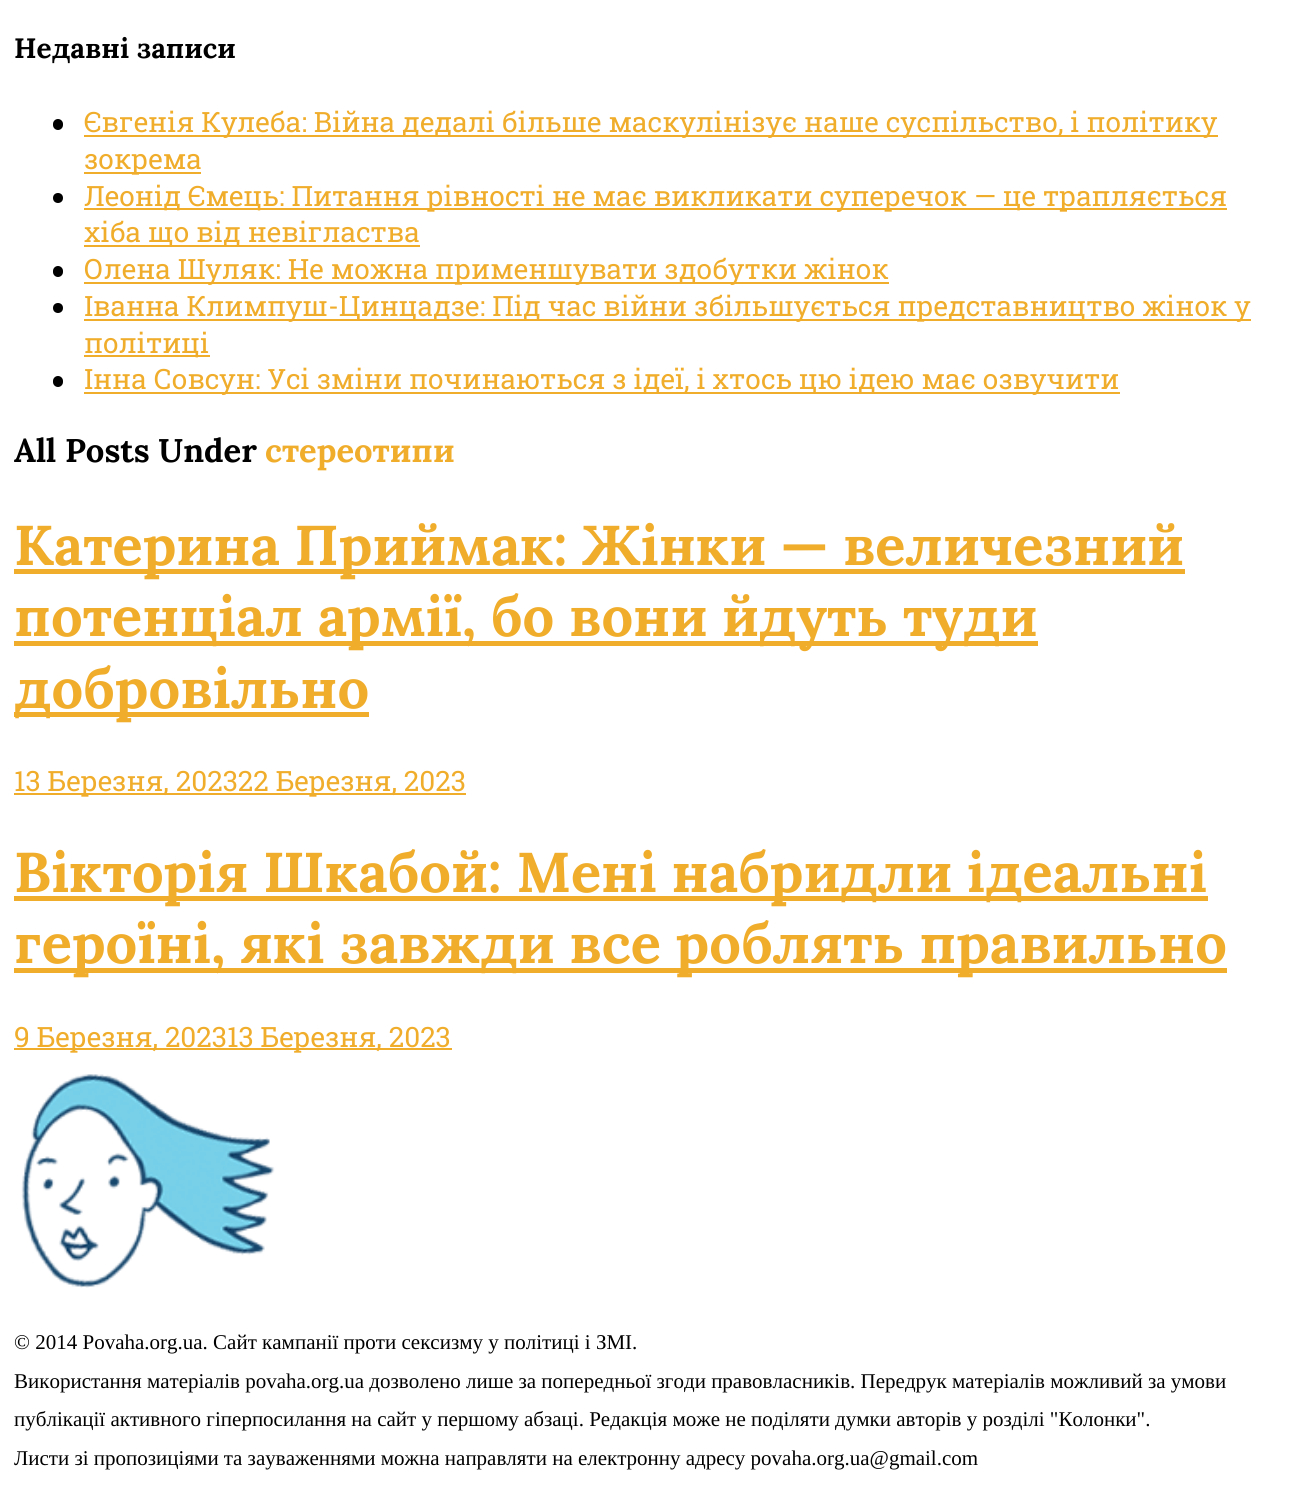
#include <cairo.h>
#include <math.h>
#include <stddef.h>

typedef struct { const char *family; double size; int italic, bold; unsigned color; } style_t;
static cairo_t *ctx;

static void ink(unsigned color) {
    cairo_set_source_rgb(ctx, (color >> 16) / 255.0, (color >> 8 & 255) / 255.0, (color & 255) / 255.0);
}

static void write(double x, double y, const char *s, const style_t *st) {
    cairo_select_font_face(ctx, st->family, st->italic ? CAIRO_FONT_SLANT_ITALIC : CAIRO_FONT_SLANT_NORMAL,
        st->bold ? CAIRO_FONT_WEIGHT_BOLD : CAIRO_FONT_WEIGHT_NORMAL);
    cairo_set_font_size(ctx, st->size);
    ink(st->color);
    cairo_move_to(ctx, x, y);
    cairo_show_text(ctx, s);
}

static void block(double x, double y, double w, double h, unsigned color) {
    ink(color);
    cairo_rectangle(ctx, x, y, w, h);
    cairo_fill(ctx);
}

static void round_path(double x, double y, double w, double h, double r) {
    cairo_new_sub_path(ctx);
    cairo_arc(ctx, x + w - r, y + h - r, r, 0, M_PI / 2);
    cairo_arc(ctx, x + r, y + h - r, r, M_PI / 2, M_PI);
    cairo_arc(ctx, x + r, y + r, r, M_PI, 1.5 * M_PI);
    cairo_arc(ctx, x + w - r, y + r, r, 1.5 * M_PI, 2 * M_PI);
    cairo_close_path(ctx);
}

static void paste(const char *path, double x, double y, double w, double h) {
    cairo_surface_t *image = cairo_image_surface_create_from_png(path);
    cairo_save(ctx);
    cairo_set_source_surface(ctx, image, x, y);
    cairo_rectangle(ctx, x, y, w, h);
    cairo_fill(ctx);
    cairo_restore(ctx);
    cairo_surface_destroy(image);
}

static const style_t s1 = {"Lora", 28, 0, 1, 0x000000};
static const style_t s2 = {"Roboto Slab", 28, 0, 0, 0xf0ad2c};
static const style_t s3 = {"Lora", 32.75, 0, 1, 0x000000};
static const style_t s4 = {"Lora", 32.75, 0, 1, 0xf0ad2c};
static const style_t s5 = {"Lora", 56, 0, 1, 0xf0ad2c};
static const style_t s6 = {"Liberation Serif", 21, 0, 0, 0x000000};

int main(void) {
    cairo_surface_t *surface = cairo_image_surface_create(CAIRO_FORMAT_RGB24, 1300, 1504);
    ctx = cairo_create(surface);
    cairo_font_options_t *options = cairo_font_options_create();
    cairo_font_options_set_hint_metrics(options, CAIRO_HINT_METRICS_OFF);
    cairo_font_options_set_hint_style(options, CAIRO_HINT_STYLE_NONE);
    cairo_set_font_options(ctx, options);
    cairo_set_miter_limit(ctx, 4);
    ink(0xffffff);
    cairo_paint(ctx);
    write(14, 58, "Недавні записи", &s1);
    round_path(53, 119, 10, 11, 5);
    cairo_fill(ctx);
    block(84, 135, 1134, 2, 0xf0ad2c);
    write(84, 132, "Євгенія Кулеба: Війна дедалі більше маскулінізує наше суспільство, і політику", &s2);
    block(84, 172, 117, 2, 0xf0ad2c);
    write(84, 169, "зокрема", &s2);
    ink(0x000000);
    cairo_new_path(ctx);
    cairo_arc(ctx, 58, 198, 5, 0, 2 * M_PI);
    cairo_fill(ctx);
    block(84, 208, 1143, 2, 0xf0ad2c);
    write(84, 206, "Леонід Ємець: Питання рівності не має викликати суперечок — це трапляється", &s2);
    block(84, 245, 336, 2, 0xf0ad2c);
    write(84, 242, "хіба що від невігластва", &s2);
    ink(0x000000);
    round_path(53, 266, 10, 11, 5);
    cairo_fill(ctx);
    block(84, 282, 805, 2, 0xf0ad2c);
    write(84, 279, "Олена Шуляк: Не можна применшувати здобутки жінок", &s2);
    ink(0x000000);
    cairo_new_path(ctx);
    cairo_arc(ctx, 58, 308, 5, 0, 2 * M_PI);
    cairo_fill(ctx);
    block(84, 319, 1167, 2, 0xf0ad2c);
    write(84, 316, "Іванна Климпуш-Цинцадзе: Під час війни збільшується представництво жінок у", &s2);
    block(84, 355, 126, 2, 0xf0ad2c);
    write(84, 353, "політиці", &s2);
    ink(0x000000);
    round_path(53, 376, 10, 11, 5);
    cairo_fill(ctx);
    block(84, 392, 1036, 2, 0xf0ad2c);
    write(84, 389, "Інна Совсун: Усі зміни починаються з ідеї, і хтось цю ідею має озвучити", &s2);
    write(14, 462, "All Posts Under", &s3);
    write(265, 462, "стереотипи", &s4);
    block(14, 569, 1171, 5, 0xf0ad2c);
    write(14, 565, "Катерина Приймак: Жінки — величезний", &s5);
    block(14, 641, 1024, 5, 0xf0ad2c);
    write(14, 636, "потенціал армії, бо вони йдуть туди", &s5);
    block(14, 712, 355, 5, 0xf0ad2c);
    write(14, 708, "добровільно", &s5);
    block(14, 793, 452, 2, 0xf0ad2c);
    write(14, 791, "13 Березня, 202322 Березня, 2023", &s2);
    block(14, 896, 1194, 5, 0xf0ad2c);
    write(14, 892, "Вікторія Шкабой: Мені набридли ідеальні", &s5);
    block(14, 968, 1213, 5, 0xf0ad2c);
    write(14, 963, "героїні, які завжди все роблять правильно", &s5);
    block(14, 1048, 438, 2, 0xf0ad2c);
    write(14, 1047, "9 Березня, 202313 Березня, 2023", &s2);
    paste("pic1.png", 21, 1074, 254, 214);
    write(14, 1349, "© 2014 Povaha.org.ua. Сайт кампанії проти сексизму у політиці і ЗМІ.", &s6);
    write(14, 1388, "Використання матеріалів povaha.org.ua дозволено лише за попередньої згоди правовласників. Передрук матеріалів можливий за умови", &s6);
    write(14, 1426, "публікації активного гіперпосилання на сайт у першому абзаці. Редакція може не поділяти думки авторів у розділі \"Колонки\".", &s6);
    write(14, 1465, "Листи зі пропозиціями та зауваженнями можна направляти на електронну адресу povaha.org.ua@gmail.com", &s6);
    cairo_surface_write_to_png(surface, "screenshot.png");
    cairo_font_options_destroy(options);
    cairo_destroy(ctx);
    cairo_surface_destroy(surface);
    return 0;
}
